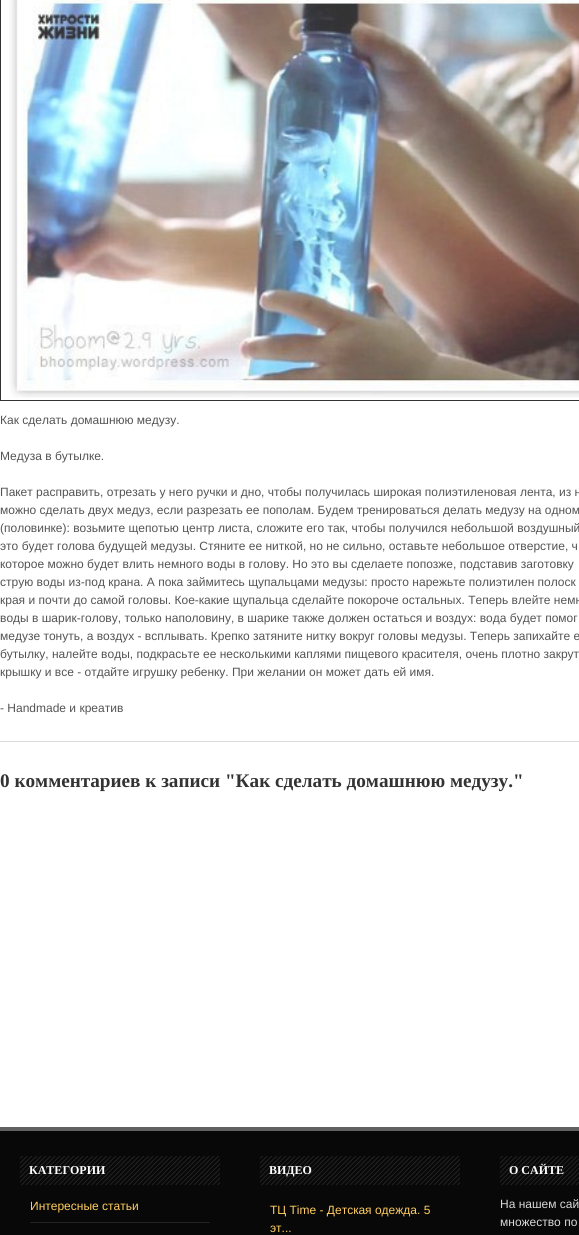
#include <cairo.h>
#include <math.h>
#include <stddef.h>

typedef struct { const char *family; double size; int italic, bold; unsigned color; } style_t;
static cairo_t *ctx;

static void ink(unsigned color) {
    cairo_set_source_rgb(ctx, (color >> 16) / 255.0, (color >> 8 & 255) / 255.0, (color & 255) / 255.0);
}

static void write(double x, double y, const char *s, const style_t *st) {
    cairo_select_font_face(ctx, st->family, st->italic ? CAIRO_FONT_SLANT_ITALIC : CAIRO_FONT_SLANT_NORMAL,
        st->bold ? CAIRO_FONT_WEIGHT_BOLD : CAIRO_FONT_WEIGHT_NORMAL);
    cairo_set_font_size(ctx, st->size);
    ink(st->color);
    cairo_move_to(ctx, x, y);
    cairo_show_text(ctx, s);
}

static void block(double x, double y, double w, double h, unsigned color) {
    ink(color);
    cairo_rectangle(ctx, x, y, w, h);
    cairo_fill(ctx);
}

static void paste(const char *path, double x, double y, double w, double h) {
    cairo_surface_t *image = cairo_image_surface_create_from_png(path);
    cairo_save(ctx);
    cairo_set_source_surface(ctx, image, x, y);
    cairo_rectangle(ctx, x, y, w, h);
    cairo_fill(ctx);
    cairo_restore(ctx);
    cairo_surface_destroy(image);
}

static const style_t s1 = {"Liberation Sans", 12, 0, 0, 0x545454};
static const style_t s2 = {"Liberation Serif", 19.2, 0, 1, 0x333333};
static const style_t s3 = {"Liberation Serif", 12, 0, 1, 0xffffff};
static const style_t s4 = {"Liberation Sans", 12, 0, 0, 0xffcd61};
static const style_t s5 = {"Liberation Sans", 12, 0, 0, 0xd8d8d8};

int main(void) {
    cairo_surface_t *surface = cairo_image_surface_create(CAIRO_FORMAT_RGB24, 579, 1235);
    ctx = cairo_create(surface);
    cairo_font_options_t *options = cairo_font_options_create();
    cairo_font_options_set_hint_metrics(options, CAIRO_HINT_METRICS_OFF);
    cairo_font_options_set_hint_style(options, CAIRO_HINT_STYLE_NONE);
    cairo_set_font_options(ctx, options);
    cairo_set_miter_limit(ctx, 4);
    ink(0xffffff);
    cairo_paint(ctx);
    block(0, 741, 579, 1, 0xd9d9d9);
    cairo_rectangle(ctx, 0.5, -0.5, 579, 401);
    ink(0x333333);
    cairo_set_line_width(ctx, 1);
    cairo_stroke(ctx);
    paste("pic1.png", 9, 0, 570, 398);
    write(0, 424, "Как сделать домашнюю медузу.", &s1);
    write(0, 460, "Медуза в бутылке.", &s1);
    write(0, 496, "Пакет расправить, отрезать у него ручки и дно, чтобы получилась широкая полиэтиленовая лента, из н", &s1);
    write(0, 514, "можно сделать двух медуз, если разрезать ее пополам. Будем тренироваться делать медузу на одном", &s1);
    write(0, 532, "(половинке): возьмите щепотью центр листа, сложите его так, чтобы получился небольшой воздушный", &s1);
    write(0, 550, "это будет голова будущей медузы. Стяните ее ниткой, но не сильно, оставьте небольшое отверстие, ч", &s1);
    write(0, 568, "которое можно будет влить немного воды в голову. Но это вы сделаете попозже, подставив заготовку", &s1);
    write(0, 586, "струю воды из-под крана. А пока займитесь щупальцами медузы: просто нарежьте полиэтилен полоск", &s1);
    write(0, 604, "края и почти до самой головы. Кое-какие щупальца сделайте покороче остальных. Теперь влейте немн", &s1);
    write(0, 622, "воды в шарик-голову, только наполовину, в шарике также должен остаться и воздух: вода будет помог", &s1);
    write(0, 640, "медузе тонуть, а воздух - всплывать. Крепко затяните нитку вокруг головы медузы. Теперь запихайте е", &s1);
    write(0, 658, "бутылку, налейте воды, подкрасьте ее несколькими каплями пищевого красителя, очень плотно закрут", &s1);
    write(0, 676, "крышку и все - отдайте игрушку ребенку. При желании он может дать ей имя.", &s1);
    write(0, 712, "- Handmade и креатив", &s1);
    write(0, 787, "0 комментариев к записи \"Как сделать домашнюю медузу.\"", &s2);
    block(0, 1131, 579, 104, 0x080808);
    block(0, 1127, 579, 4, 0x616161);
    paste("pic2.png", 20, 1156, 200, 29);
    write(29, 1174, "КАТЕГОРИИ", &s3);
    block(30, 1222, 180, 1, 0x232220);
    write(30, 1210, "Интересные статьи", &s4);
    paste("pic2.png", 260, 1156, 200, 29);
    write(269, 1174, "ВИДЕО", &s3);
    write(270, 1214, "ТЦ Time - Детская одежда. 5", &s4);
    write(270, 1232, "эт...", &s4);
    paste("pic3.png", 500, 1156, 79, 29);
    write(509, 1174, "О САЙТЕ", &s3);
    write(500, 1208, "На нашем сай", &s5);
    write(500, 1226, "множество по", &s5);
    cairo_surface_write_to_png(surface, "screenshot.png");
    cairo_font_options_destroy(options);
    cairo_destroy(ctx);
    cairo_surface_destroy(surface);
    return 0;
}
